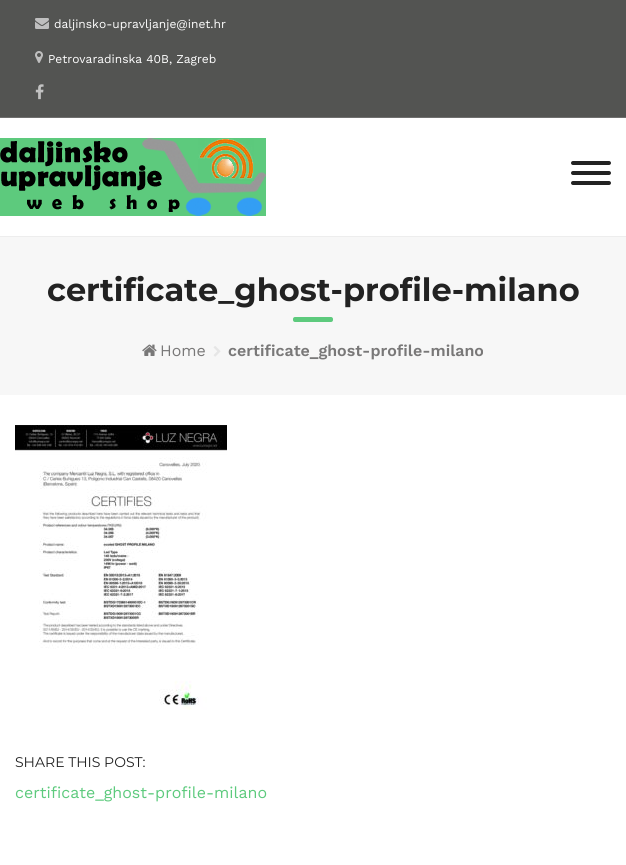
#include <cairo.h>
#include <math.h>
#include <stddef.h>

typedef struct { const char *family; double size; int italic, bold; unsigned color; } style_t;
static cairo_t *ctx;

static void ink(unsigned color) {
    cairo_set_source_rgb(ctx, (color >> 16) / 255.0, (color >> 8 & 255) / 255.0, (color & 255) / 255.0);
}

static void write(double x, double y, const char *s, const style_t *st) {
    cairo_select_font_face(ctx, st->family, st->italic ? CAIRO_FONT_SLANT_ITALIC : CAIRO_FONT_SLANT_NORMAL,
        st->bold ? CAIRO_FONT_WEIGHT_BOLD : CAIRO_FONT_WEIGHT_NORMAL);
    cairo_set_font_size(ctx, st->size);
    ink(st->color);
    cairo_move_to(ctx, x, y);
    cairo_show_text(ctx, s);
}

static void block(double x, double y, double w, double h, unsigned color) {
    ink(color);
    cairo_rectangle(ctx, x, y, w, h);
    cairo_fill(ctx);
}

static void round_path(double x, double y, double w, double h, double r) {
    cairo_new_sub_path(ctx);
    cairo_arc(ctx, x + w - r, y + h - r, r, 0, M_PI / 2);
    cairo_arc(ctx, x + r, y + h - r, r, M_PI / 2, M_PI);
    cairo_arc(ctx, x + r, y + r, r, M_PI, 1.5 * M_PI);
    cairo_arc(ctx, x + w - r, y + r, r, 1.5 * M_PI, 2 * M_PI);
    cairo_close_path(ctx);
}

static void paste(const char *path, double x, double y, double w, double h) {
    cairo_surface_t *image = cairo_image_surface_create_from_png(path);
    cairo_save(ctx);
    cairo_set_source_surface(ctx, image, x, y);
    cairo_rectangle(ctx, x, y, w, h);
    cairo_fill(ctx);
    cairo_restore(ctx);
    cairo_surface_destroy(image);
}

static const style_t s1 = {"Work Sans", 12, 0, 0, 0xffffff};
static const style_t s2 = {"Montserrat", 32, 0, 1, 0x222222};
static const style_t s3 = {"Work Sans", 16, 0, 0, 0x797878};
static const style_t s4 = {"Work Sans SemiBold", 16, 0, 0, 0x797878};
static const style_t s5 = {"Montserrat", 14, 0, 0, 0x222222};
static const style_t s6 = {"Work Sans", 16, 0, 0, 0x5dca7d};

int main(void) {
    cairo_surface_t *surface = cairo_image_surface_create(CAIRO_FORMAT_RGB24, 626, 865);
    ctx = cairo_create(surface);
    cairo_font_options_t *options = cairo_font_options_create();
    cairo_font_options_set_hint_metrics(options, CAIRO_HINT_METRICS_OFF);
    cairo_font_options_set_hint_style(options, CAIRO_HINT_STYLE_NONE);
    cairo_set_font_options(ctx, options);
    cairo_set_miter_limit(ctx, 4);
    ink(0xffffff);
    cairo_paint(ctx);
    block(0, 0, 626, 117, 0x535452);
    block(0, 117, 626, 1, 0x6f6f6e);
    paste("pic1.png", 35, 18, 14, 11);
    write(54, 28, "daljinsko-upravljanje@inet.hr", &s1);
    paste("pic2.png", 35, 51, 8, 12);
    write(48, 63, "Petrovaradinska 40B, Zagreb", &s1);
    paste("pic3.png", 35, 84, 9, 16);
    block(0, 236, 626, 1, 0xededed);
    paste("pic4.png", 0, 138, 266, 78);
    ink(0x222222);
    round_path(571, 181, 40, 4, 2);
    cairo_fill(ctx);
    round_path(571, 161, 40, 4, 2);
    cairo_fill(ctx);
    round_path(571, 171, 40, 4, 2);
    cairo_fill(ctx);
    block(0, 237, 626, 158, 0xf7f7f7);
    write(47, 301, "certificate_ghost-profile-milano", &s2);
    ink(0x5dca7d);
    round_path(293, 317, 40, 5, 2);
    cairo_fill(ctx);
    paste("pic5.png", 142, 344, 15, 12);
    write(160, 356, "Home", &s3);
    paste("pic6.png", 213, 346, 8, 11);
    write(228, 356, "certificate_ghost-profile-milano", &s4);
    paste("pic7.png", 15, 425, 212, 285);
    write(15, 767, "SHARE THIS POST:", &s5);
    write(15, 798, "certificate_ghost-profile-milano", &s6);
    cairo_surface_write_to_png(surface, "screenshot.png");
    cairo_font_options_destroy(options);
    cairo_destroy(ctx);
    cairo_surface_destroy(surface);
    return 0;
}
